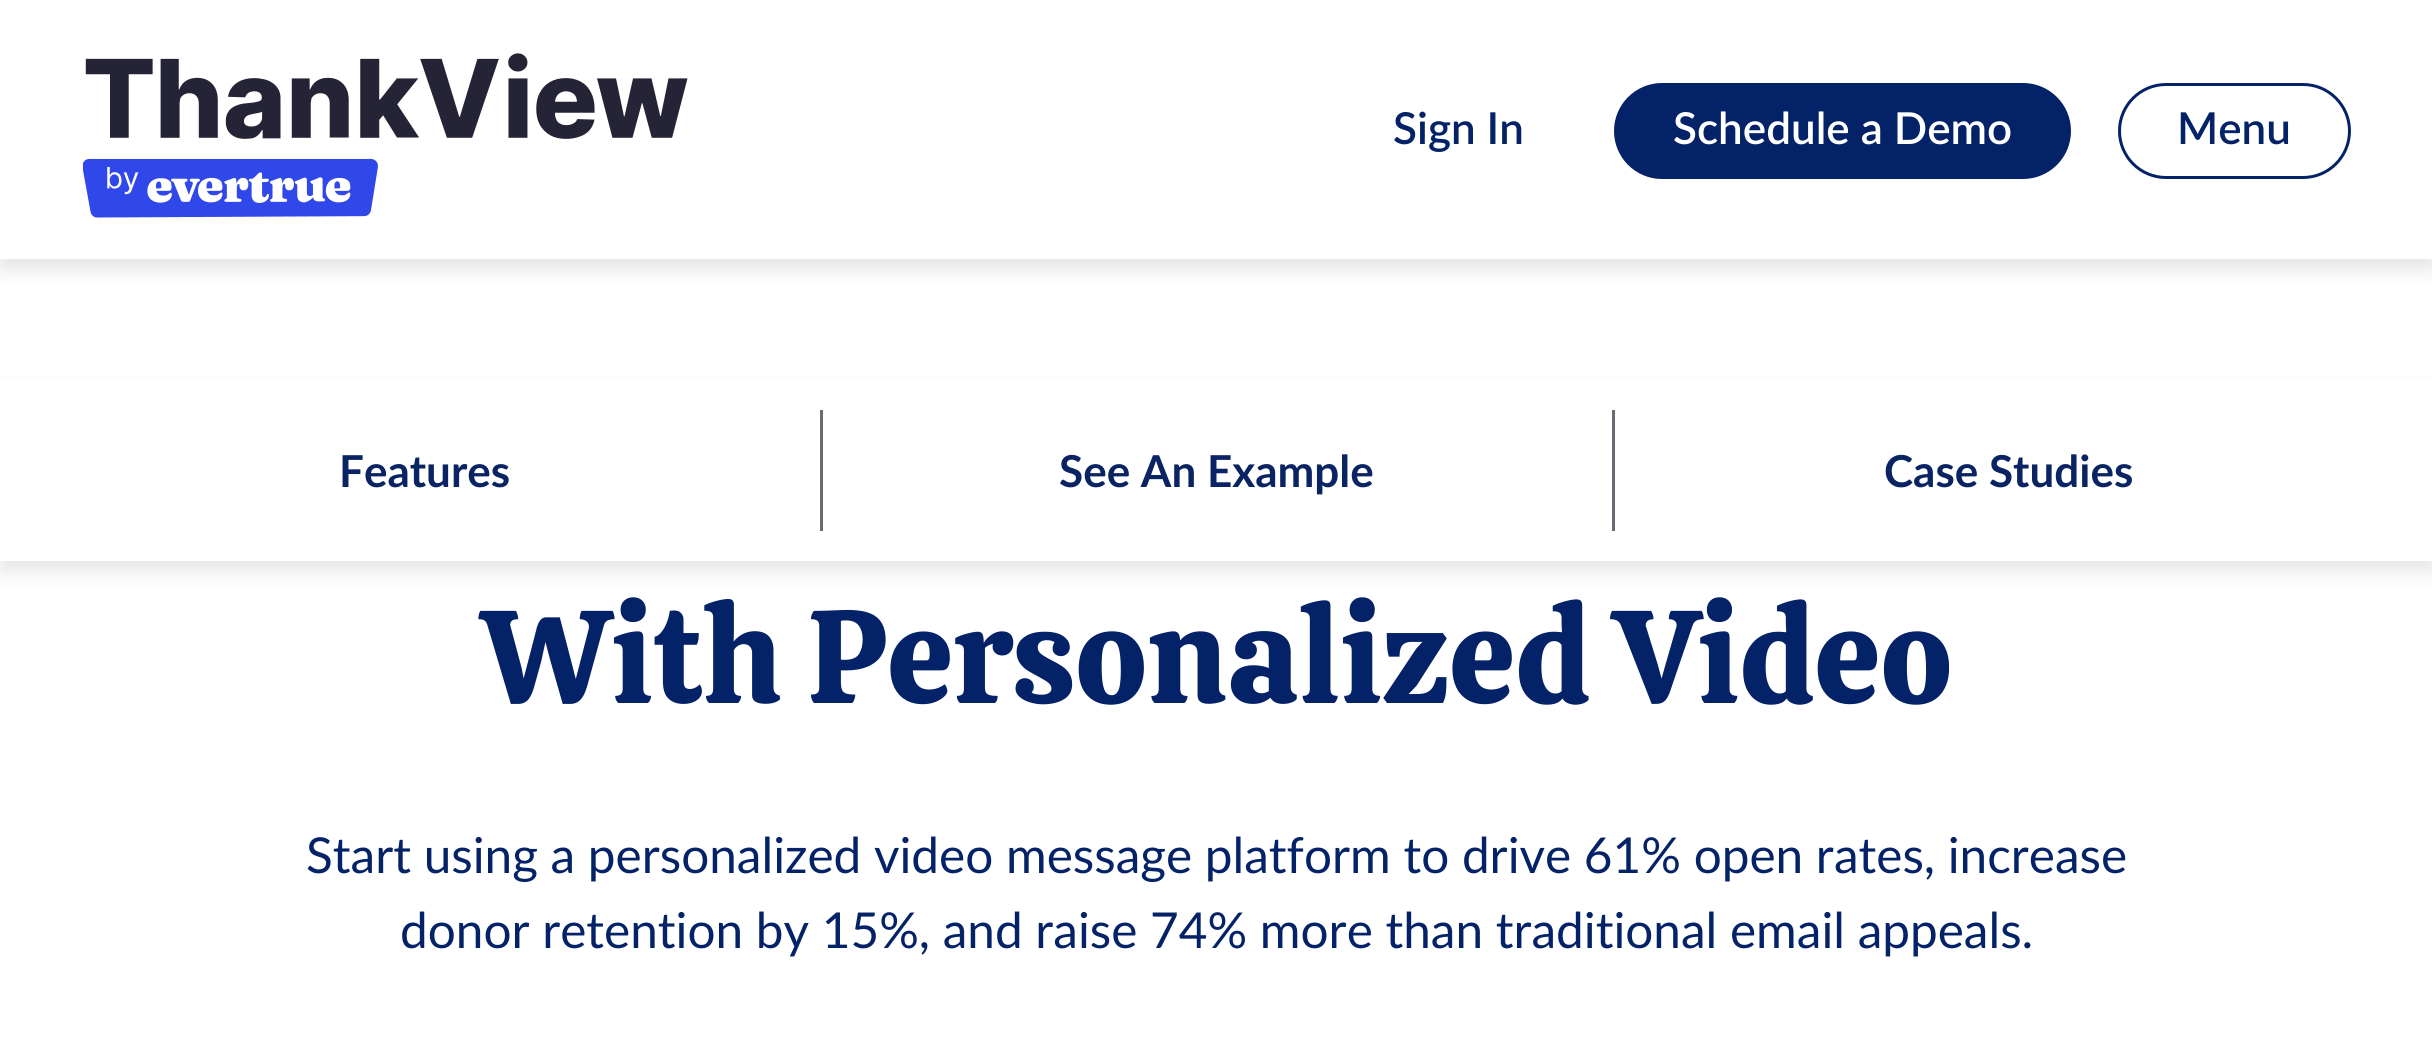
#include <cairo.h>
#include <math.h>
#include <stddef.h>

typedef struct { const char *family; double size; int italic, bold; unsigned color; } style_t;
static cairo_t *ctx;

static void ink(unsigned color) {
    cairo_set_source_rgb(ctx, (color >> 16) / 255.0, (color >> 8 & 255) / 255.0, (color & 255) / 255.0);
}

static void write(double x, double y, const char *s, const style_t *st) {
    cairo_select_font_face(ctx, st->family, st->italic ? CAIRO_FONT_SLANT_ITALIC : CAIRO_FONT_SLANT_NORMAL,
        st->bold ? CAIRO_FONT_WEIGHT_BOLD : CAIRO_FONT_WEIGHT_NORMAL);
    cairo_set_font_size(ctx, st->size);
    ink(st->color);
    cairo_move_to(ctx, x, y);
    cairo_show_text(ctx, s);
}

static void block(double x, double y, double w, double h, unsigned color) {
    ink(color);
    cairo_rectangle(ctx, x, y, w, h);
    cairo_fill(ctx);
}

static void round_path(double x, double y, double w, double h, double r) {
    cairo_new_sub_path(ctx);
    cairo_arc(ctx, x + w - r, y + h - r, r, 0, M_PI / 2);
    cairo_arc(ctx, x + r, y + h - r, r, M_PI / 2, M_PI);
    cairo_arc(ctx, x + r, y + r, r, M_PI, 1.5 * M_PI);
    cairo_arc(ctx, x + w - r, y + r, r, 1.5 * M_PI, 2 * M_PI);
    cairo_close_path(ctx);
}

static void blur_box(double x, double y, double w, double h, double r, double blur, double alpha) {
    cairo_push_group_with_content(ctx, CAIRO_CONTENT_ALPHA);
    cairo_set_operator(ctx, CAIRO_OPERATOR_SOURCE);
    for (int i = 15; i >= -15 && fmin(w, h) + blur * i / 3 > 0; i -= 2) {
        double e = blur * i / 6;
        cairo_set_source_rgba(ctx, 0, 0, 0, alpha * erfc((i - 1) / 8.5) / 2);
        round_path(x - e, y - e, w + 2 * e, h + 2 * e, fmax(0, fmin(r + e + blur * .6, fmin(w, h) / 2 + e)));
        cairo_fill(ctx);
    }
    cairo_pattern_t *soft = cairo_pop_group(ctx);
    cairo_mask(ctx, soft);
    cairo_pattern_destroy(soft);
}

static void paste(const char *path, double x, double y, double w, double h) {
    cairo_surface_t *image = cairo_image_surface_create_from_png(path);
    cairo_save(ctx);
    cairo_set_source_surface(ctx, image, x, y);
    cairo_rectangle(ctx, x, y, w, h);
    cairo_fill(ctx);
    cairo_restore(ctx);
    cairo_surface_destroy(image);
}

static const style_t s1 = {"Lato SemiBold", 44, 0, 0, 0x042267};
static const style_t s2 = {"Lato SemiBold", 44, 0, 0, 0xffffff};
static const style_t s3 = {"Lato", 44, 0, 1, 0x0a2463};
static const style_t s4 = {"Calistoga", 132, 0, 0, 0x042267};
static const style_t s5 = {"Lato", 49.5, 0, 0, 0x042267};

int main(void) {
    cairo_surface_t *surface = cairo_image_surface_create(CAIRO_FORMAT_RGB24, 2432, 1038);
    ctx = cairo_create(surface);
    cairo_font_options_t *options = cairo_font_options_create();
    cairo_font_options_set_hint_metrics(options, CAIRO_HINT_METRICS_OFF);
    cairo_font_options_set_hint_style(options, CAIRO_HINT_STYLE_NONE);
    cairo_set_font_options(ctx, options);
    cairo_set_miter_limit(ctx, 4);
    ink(0xffffff);
    cairo_paint(ctx);
    ink(0x000000);
    blur_box(0, 11, 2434, 259, 0, 9.5, 0.1);
    block(0, 0, 2432, 259, 0xffffff);
    paste("pic1.png", 83, 53, 605, 165);
    write(1393, 144, "Sign In", &s1);
    round_path(1614, 83, 457, 96, 48);
    cairo_fill(ctx);
    write(1673, 144, "Schedule a Demo", &s2);
    round_path(2119.5, 84.5, 230, 93, 46.5);
    ink(0x042267);
    cairo_set_line_width(ctx, 3);
    cairo_stroke(ctx);
    write(2177, 144, "Menu", &s1);
    ink(0x000000);
    blur_box(0, 391, 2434, 181, 0, 9.5, 0.1);
    block(0, 380, 2432, 181, 0xffffff);
    write(339, 487, "Features", &s3);
    block(1612, 410, 3, 121, 0x696a72);
    block(820, 410, 3, 121, 0x696a72);
    write(1059, 487, "See An Example", &s3);
    write(1884, 487, "Case Studies", &s3);
    write(481, 703, "With Personalized Video", &s4);
    write(306, 873, "Start using a personalized video message platform to drive 61% open rates, increase", &s5);
    write(400, 948, "donor retention by 15%, and raise 74% more than traditional email appeals.", &s5);
    cairo_surface_write_to_png(surface, "screenshot.png");
    cairo_font_options_destroy(options);
    cairo_destroy(ctx);
    cairo_surface_destroy(surface);
    return 0;
}
